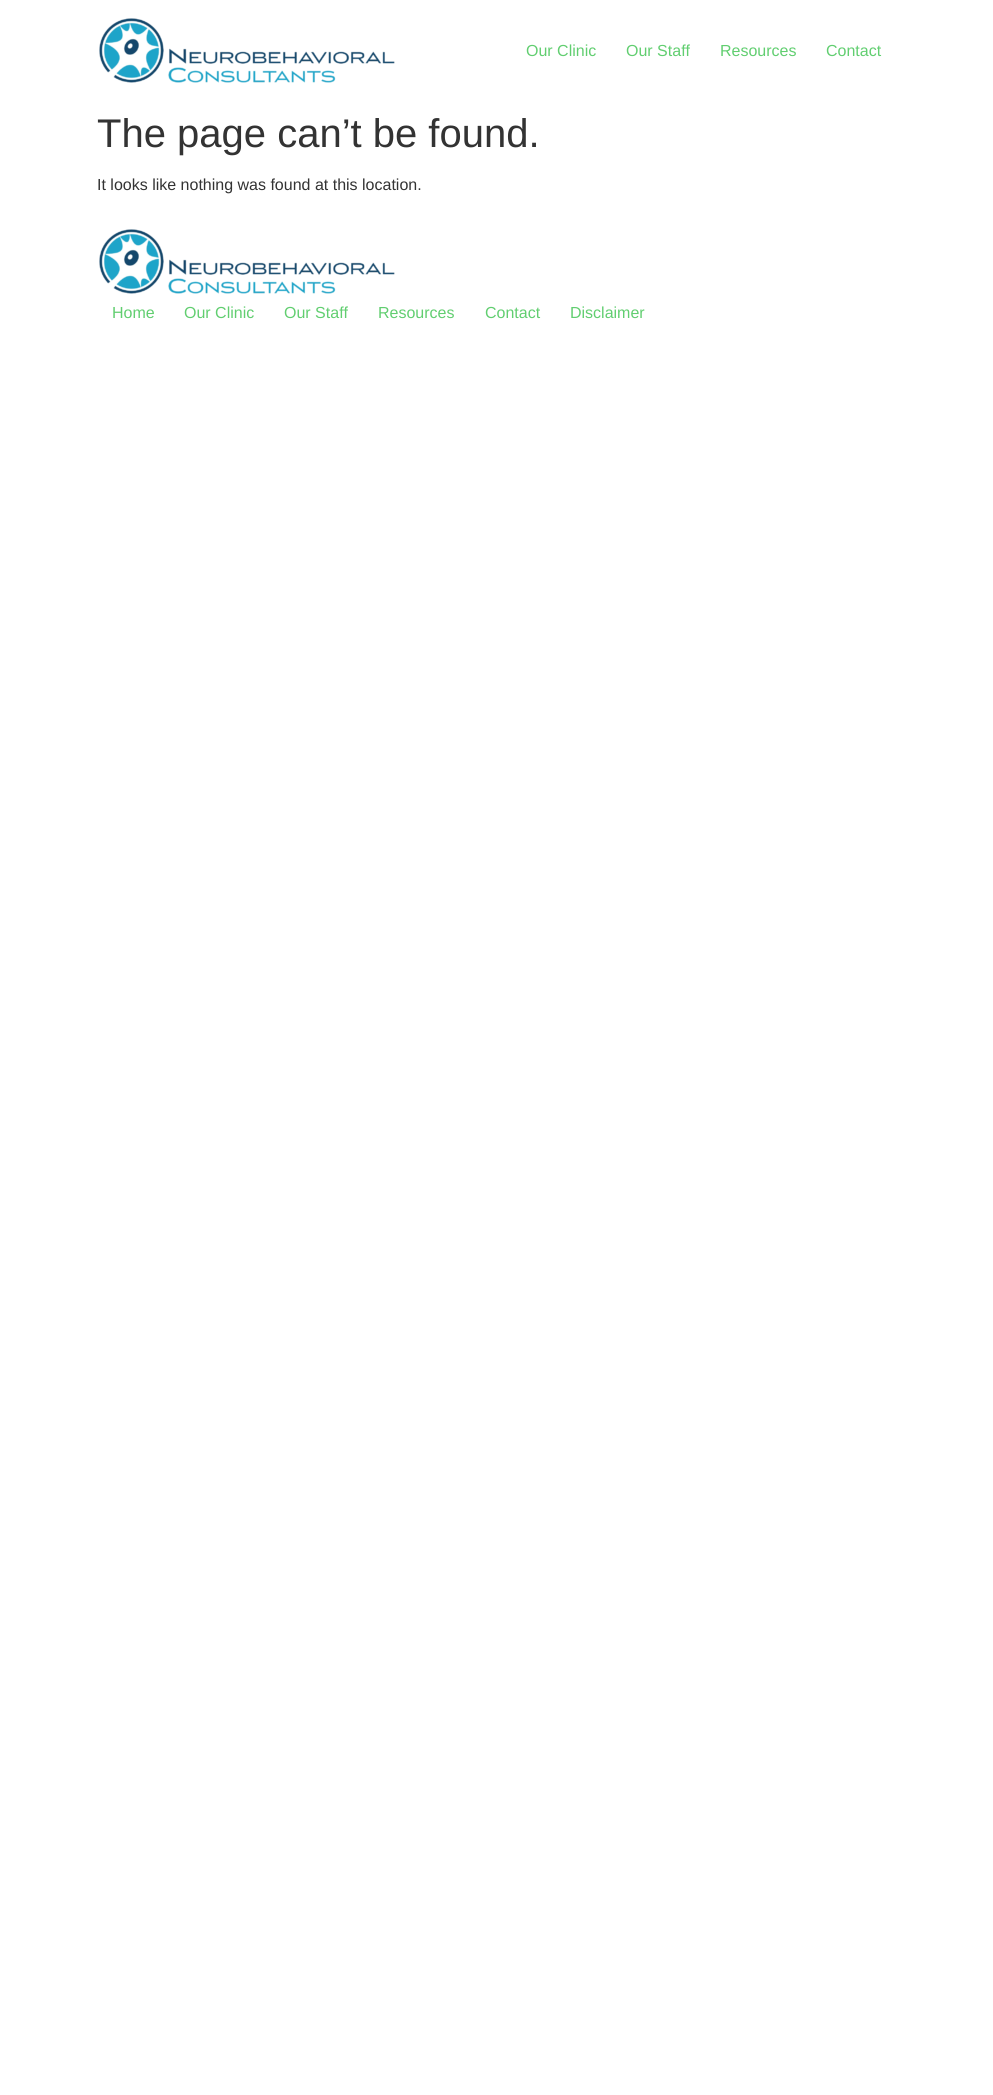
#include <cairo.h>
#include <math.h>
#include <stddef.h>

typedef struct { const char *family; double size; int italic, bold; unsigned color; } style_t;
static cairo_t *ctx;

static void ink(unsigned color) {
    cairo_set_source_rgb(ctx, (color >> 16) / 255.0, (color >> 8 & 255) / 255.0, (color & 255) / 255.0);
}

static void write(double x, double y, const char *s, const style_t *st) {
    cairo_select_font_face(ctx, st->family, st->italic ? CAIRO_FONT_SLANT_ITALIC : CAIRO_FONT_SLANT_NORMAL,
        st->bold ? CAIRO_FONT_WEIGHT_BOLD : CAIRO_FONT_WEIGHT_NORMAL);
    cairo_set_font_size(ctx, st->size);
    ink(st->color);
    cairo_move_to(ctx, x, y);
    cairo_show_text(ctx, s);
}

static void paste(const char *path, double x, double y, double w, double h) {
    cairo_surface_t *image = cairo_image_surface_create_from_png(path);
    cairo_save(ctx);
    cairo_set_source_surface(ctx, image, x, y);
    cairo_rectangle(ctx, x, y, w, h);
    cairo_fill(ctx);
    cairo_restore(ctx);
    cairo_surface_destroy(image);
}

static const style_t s1 = {"Liberation Sans", 16, 0, 0, 0x61ce70};
static const style_t s2 = {"Liberation Sans", 40, 0, 0, 0x333333};
static const style_t s3 = {"Liberation Sans", 16, 0, 0, 0x333333};

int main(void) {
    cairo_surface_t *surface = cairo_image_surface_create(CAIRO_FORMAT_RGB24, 993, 2095);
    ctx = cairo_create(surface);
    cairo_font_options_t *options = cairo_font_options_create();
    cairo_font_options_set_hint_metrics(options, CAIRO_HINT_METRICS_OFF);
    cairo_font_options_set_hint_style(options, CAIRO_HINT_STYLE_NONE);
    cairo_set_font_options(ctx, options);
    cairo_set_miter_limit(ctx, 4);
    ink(0xffffff);
    cairo_paint(ctx);
    paste("pic1.png", 99, 18, 296, 65);
    write(526, 56, "Our Clinic", &s1);
    write(626, 56, "Our Staff", &s1);
    write(720, 56, "Resources", &s1);
    write(826, 56, "Contact", &s1);
    write(97, 147, "The page can’t be found.", &s2);
    write(97, 190, "It looks like nothing was found at this location.", &s3);
    paste("pic1.png", 99, 229, 296, 65);
    write(112, 318, "Home", &s1);
    write(184, 318, "Our Clinic", &s1);
    write(284, 318, "Our Staff", &s1);
    write(378, 318, "Resources", &s1);
    write(485, 318, "Contact", &s1);
    write(570, 318, "Disclaimer", &s1);
    cairo_surface_write_to_png(surface, "screenshot.png");
    cairo_font_options_destroy(options);
    cairo_destroy(ctx);
    cairo_surface_destroy(surface);
    return 0;
}
